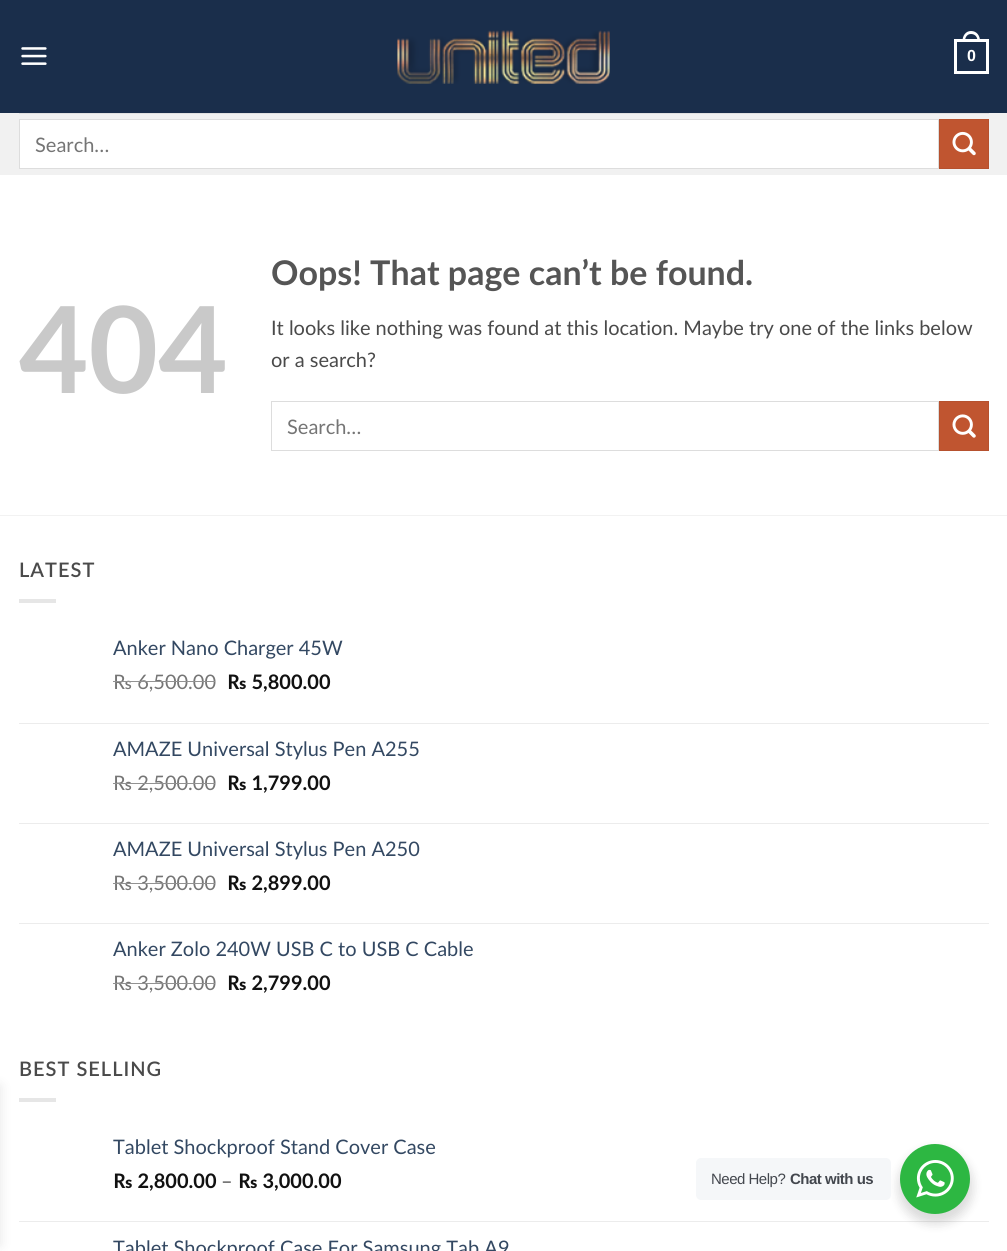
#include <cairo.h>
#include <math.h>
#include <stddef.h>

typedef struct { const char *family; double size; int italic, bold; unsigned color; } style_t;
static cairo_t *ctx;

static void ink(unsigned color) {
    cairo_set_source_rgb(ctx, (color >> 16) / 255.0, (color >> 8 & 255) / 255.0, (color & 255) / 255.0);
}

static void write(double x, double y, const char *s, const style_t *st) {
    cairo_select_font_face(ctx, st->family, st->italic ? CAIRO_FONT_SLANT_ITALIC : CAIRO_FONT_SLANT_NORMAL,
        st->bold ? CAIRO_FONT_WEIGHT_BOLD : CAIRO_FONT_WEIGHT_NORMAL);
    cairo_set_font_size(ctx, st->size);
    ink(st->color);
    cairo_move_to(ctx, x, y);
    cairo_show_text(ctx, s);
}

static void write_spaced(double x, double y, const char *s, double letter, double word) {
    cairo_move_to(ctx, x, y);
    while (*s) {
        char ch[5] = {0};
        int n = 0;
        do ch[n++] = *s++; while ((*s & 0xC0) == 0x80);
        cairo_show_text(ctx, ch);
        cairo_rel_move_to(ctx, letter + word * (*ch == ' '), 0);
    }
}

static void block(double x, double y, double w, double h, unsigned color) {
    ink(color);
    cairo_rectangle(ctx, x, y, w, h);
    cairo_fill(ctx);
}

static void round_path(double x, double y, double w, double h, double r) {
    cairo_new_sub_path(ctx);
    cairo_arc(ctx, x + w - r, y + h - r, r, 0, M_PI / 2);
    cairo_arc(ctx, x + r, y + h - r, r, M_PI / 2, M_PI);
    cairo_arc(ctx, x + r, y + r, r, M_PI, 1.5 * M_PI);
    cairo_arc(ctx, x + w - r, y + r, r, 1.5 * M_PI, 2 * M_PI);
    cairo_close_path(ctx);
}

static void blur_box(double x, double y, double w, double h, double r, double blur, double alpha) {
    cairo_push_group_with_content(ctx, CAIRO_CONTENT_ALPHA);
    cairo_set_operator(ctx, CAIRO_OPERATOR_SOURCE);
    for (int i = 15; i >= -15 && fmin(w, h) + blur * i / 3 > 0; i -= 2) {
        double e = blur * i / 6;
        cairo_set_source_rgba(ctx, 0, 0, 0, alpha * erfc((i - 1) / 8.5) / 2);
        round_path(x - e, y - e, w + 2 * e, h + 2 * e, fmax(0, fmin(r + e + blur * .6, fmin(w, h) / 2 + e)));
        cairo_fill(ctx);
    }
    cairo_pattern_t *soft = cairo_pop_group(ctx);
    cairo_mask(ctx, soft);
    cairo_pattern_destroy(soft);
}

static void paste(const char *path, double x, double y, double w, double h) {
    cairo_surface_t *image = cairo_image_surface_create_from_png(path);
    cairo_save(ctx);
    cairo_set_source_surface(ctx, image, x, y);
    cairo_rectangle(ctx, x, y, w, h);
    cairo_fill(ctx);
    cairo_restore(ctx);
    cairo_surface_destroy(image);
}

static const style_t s1 = {"Liberation Sans", 16, 0, 1, 0xffffff};
static const style_t s2 = {"Lato", 20, 0, 0, 0x757575};
static const style_t s3 = {"Lato", 120, 0, 1, 0xc9c9c9};
static const style_t s4 = {"Lato", 34, 0, 1, 0x555555};
static const style_t s5 = {"Lato", 20, 0, 0, 0x4a4a4a};
static const style_t s6 = {"Lato", 20, 0, 0, 0x334862};
static const style_t s7 = {"Lato", 20, 0, 1, 0x111111};

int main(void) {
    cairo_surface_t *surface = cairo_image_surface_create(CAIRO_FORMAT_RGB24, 1007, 1251);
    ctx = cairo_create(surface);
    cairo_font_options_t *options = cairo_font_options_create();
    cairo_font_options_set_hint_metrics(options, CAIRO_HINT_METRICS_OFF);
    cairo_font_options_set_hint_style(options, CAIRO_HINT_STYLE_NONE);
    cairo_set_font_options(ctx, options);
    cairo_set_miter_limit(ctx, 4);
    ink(0xffffff);
    cairo_paint(ctx);
    ink(0x000000);
    blur_box(-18, 1086, 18, 159, 0, 6, 0.1);
    block(0, 0, 1007, 113, 0x1a2e4b);
    paste("pic1.png", 21, 47, 26, 18);
    paste("pic2.png", 397, 30, 213, 54);
    cairo_rectangle(ctx, 955.5, 40.5, 32, 32);
    ink(0xffffff);
    cairo_set_line_width(ctx, 3);
    cairo_stroke(ctx);
    cairo_set_fill_rule(ctx, CAIRO_FILL_RULE_EVEN_ODD);
    cairo_new_path(ctx);
    cairo_move_to(ctx, 971, 31);
    cairo_curve_to(ctx, 977, 31, 980, 36, 980, 41);
    cairo_line_to(ctx, 962.5, 41);
    cairo_curve_to(ctx, 962.5, 36, 965.5, 31, 971, 31);
    cairo_close_path(ctx);
    cairo_move_to(ctx, 971, 34);
    cairo_curve_to(ctx, 975.5, 34, 977.5, 37.5, 977.5, 41);
    cairo_line_to(ctx, 965, 41);
    cairo_curve_to(ctx, 965, 37.5, 967, 34, 971, 34);
    cairo_close_path(ctx);
    cairo_fill(ctx);
    write(967, 61, "0", &s1);
    block(0, 113, 1007, 62, 0xf1f1f1);
    block(19, 113, 970, 1, 0xe0e0e0);
    ink(0xffffff);
    cairo_rectangle(ctx, 19.5, 119.5, 919, 49);
    cairo_fill_preserve(ctx);
    ink(0xdddddd);
    cairo_set_line_width(ctx, 1);
    cairo_stroke(ctx);
    write(35, 152, "Search…", &s2);
    ink(0xc05530);
    cairo_rectangle(ctx, 939.5, 119.5, 49, 49);
    cairo_fill_preserve(ctx);
    ink(0xb6512e);
    cairo_stroke(ctx);
    paste("pic3.png", 952, 131, 24, 25);
    write(19, 393, "404", &s3);
    write(271, 285, "Oops! That page can’t be found.", &s4);
    write(271, 335, "It looks like nothing was found at this location. Maybe try one of the links below", &s5);
    write(271, 367, "or a search?", &s5);
    cairo_rectangle(ctx, 271.5, 401.5, 667, 49);
    ink(0xdddddd);
    cairo_stroke(ctx);
    write(287, 434, "Search…", &s2);
    ink(0xc05530);
    cairo_rectangle(ctx, 939.5, 401.5, 49, 49);
    cairo_fill_preserve(ctx);
    ink(0xb6512e);
    cairo_stroke(ctx);
    paste("pic4.png", 952, 414, 24, 24);
    block(0, 515, 1007, 1, 0xf2f2f2);
    cairo_select_font_face(ctx, "Lato SemiBold", CAIRO_FONT_SLANT_NORMAL, CAIRO_FONT_WEIGHT_NORMAL);
    ink(0x4a4a4a);
    write_spaced(19, 577, "LATEST", 1, 0);
    block(19, 599, 37, 4, 0xe6e6e6);
    write(113, 655, "Anker Nano Charger 45W", &s6);
    write(113, 689, "₨ 6,500.00", &s2);
    block(113, 681, 102, 1, 0x929292);
    write(227, 689, "₨ 5,800.00", &s7);
    block(19, 723, 970, 1, 0xececec);
    write(113, 756, "AMAZE Universal Stylus Pen A255", &s6);
    write(113, 790, "₨ 2,500.00", &s2);
    block(113, 783, 102, 1, 0x929292);
    write(227, 790, "₨ 1,799.00", &s7);
    block(19, 823, 970, 1, 0xececec);
    write(113, 856, "AMAZE Universal Stylus Pen A250", &s6);
    write(113, 890, "₨ 3,500.00", &s2);
    block(113, 883, 102, 1, 0x929292);
    write(227, 890, "₨ 2,899.00", &s7);
    block(19, 923, 970, 1, 0xececec);
    write(113, 956, "Anker Zolo 240W USB C to USB C Cable", &s6);
    write(113, 990, "₨ 3,500.00", &s2);
    block(113, 983, 102, 1, 0x929292);
    write(227, 990, "₨ 2,799.00", &s7);
    cairo_select_font_face(ctx, "Lato SemiBold", CAIRO_FONT_SLANT_NORMAL, CAIRO_FONT_WEIGHT_NORMAL);
    ink(0x4a4a4a);
    write_spaced(19, 1076, "BEST SELLING", 1, 0);
    block(19, 1098, 37, 4, 0xe6e6e6);
    cairo_save(ctx);
    cairo_set_fill_rule(ctx, CAIRO_FILL_RULE_WINDING);
    cairo_rectangle(ctx, 113, 1134, 876, 26);
    cairo_clip(ctx);
    write(113, 1154, "Tablet Shockproof Stand Cover Case", &s6);
    cairo_restore(ctx);
    write(113, 1188, "₨ 2,800.00", &s7);
    write(221, 1188, "–", &s5);
    write(238, 1188, "₨ 3,000.00", &s7);
    block(19, 1221, 970, 1, 0xececec);
    cairo_save(ctx);
    cairo_set_fill_rule(ctx, CAIRO_FILL_RULE_WINDING);
    cairo_rectangle(ctx, 113, 1235, 876, 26);
    cairo_clip(ctx);
    write(113, 1255, "Tablet Shockproof Case For Samsung Tab A9", &s6);
    cairo_restore(ctx);
    ink(0x000000);
    blur_box(898, 1149, 75, 75, 37.5, 5, 0.14);
    ink(0xf5f7f9);
    round_path(696, 1158, 195, 42, 5);
    cairo_fill(ctx);
    cairo_select_font_face(ctx, "Liberation Sans", CAIRO_FONT_SLANT_NORMAL, CAIRO_FONT_WEIGHT_NORMAL);
    cairo_set_font_size(ctx, 15);
    ink(0x43474e);
    write_spaced(711, 1184, "Need Help?", -0.5, 0);
    cairo_select_font_face(ctx, "Liberation Sans", CAIRO_FONT_SLANT_NORMAL, CAIRO_FONT_WEIGHT_BOLD);
    write_spaced(790, 1184, "Chat with us", -0.5, 0);
    ink(0x2db742);
    cairo_new_path(ctx);
    cairo_arc(ctx, 935, 1179, 35, 0, 2 * M_PI);
    cairo_fill(ctx);
    paste("pic5.png", 916, 1160, 38, 38);
    cairo_surface_write_to_png(surface, "screenshot.png");
    cairo_font_options_destroy(options);
    cairo_destroy(ctx);
    cairo_surface_destroy(surface);
    return 0;
}
